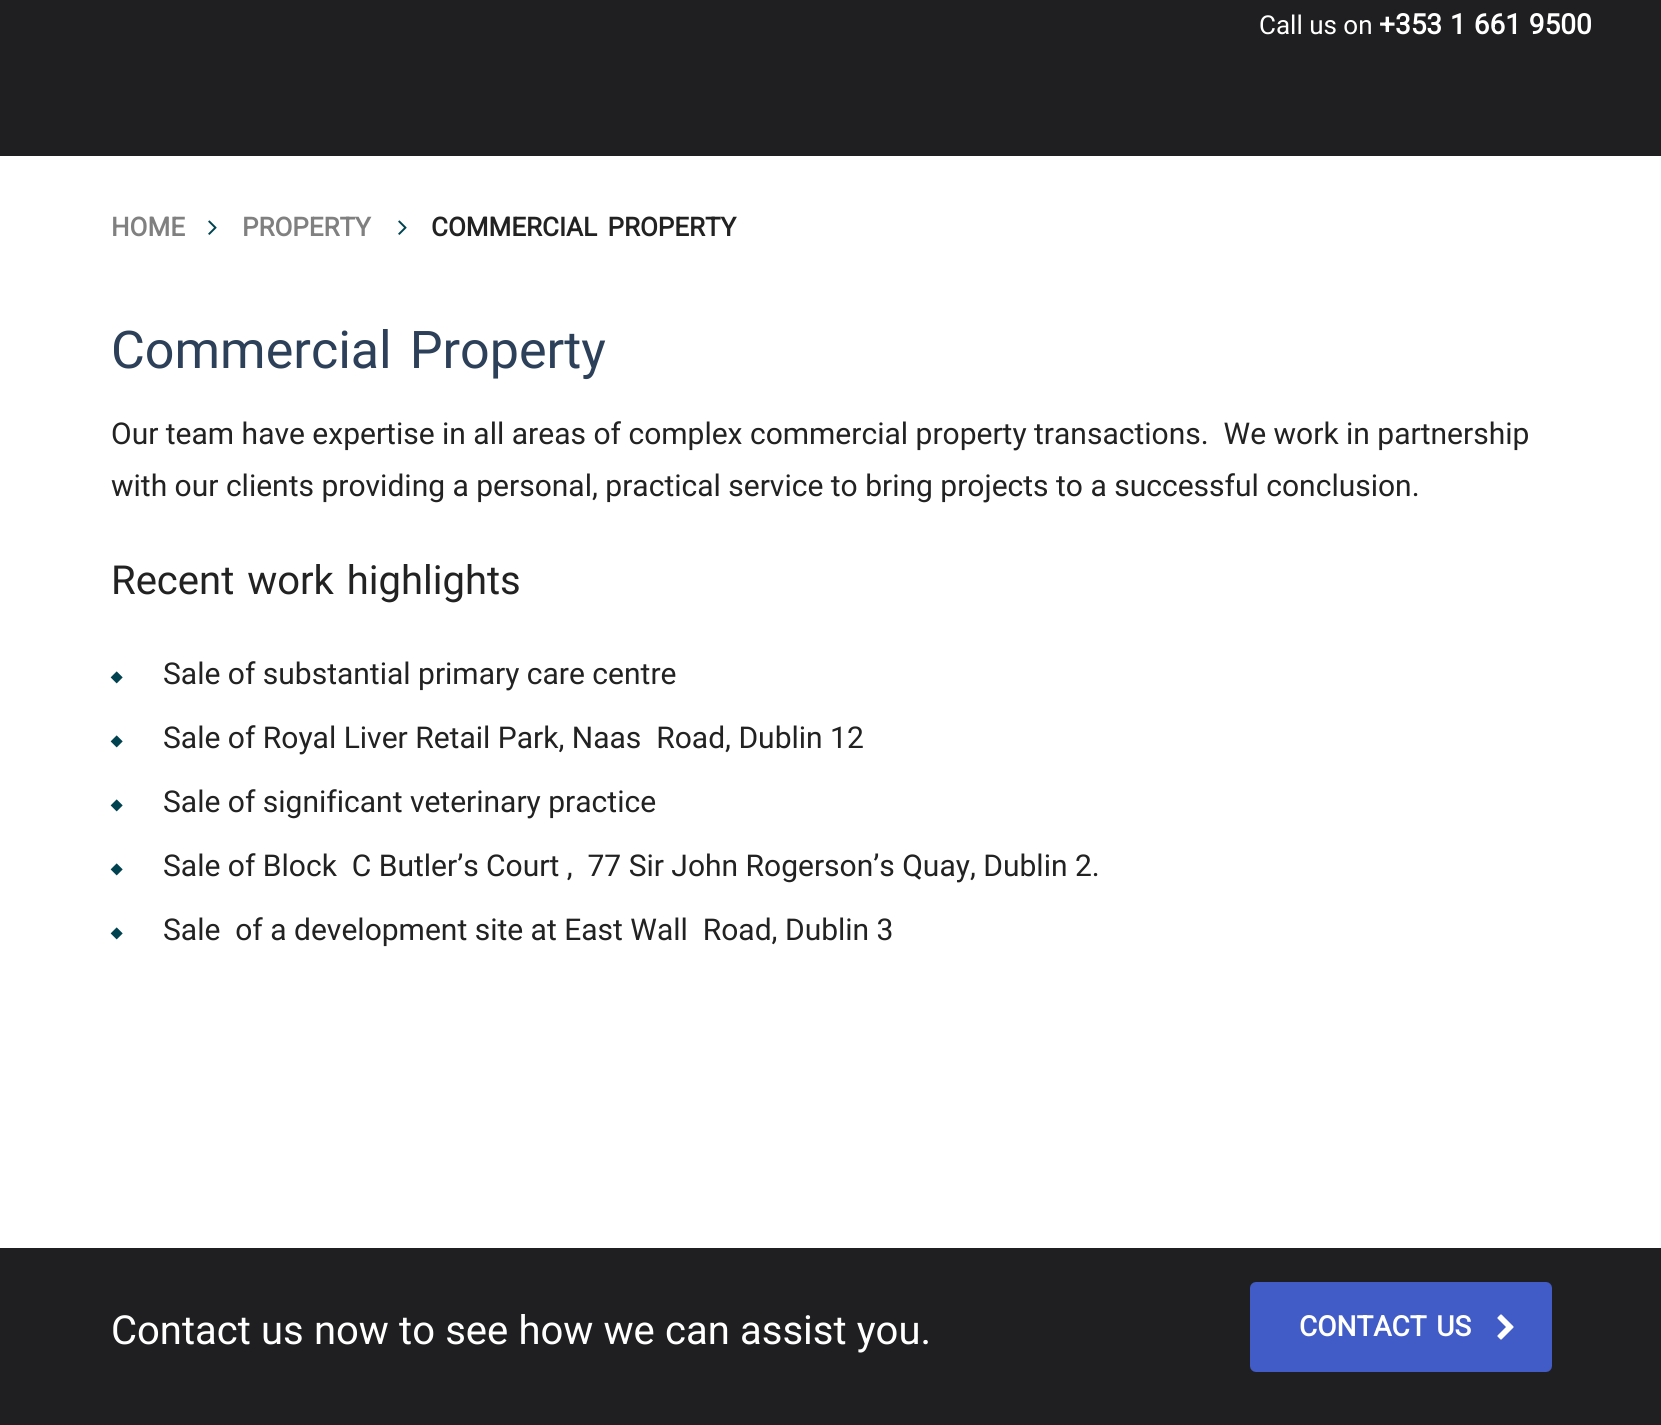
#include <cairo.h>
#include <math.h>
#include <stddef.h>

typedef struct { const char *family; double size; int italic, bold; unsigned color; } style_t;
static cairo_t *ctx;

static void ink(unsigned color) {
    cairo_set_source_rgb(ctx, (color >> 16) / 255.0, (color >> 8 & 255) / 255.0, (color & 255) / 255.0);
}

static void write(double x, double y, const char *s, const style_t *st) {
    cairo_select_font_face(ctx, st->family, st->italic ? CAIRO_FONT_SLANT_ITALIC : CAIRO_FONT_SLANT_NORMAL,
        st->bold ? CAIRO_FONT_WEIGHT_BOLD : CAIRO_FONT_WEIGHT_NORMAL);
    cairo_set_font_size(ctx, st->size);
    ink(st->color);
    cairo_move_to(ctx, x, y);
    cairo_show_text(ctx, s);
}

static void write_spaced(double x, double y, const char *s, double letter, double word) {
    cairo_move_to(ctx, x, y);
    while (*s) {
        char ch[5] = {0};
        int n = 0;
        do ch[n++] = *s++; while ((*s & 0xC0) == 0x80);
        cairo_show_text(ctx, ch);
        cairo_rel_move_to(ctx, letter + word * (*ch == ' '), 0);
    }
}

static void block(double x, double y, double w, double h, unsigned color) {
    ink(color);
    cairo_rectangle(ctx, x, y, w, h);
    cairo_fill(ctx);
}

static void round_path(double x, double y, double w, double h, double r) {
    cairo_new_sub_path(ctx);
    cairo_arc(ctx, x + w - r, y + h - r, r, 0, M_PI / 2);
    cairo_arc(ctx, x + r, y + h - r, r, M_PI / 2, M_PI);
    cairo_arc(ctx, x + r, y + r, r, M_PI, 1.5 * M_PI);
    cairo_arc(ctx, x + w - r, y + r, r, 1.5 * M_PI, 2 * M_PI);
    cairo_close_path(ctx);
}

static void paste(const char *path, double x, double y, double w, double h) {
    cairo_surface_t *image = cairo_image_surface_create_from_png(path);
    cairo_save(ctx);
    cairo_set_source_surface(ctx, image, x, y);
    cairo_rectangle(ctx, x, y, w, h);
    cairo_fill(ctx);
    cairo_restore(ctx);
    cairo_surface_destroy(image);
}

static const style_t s1 = {"Heebo", 26, 0, 0, 0xffffff};
static const style_t s2 = {"Heebo", 26, 0, 1, 0x808080};
static const style_t s3 = {"Heebo", 30, 0, 0, 0x222222};

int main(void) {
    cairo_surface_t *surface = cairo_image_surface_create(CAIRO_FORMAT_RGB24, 1661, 1425);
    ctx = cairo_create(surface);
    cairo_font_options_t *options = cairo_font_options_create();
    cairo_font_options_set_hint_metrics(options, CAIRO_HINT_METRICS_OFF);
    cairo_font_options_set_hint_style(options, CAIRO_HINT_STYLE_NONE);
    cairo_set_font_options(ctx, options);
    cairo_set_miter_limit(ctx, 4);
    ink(0xffffff);
    cairo_paint(ctx);
    block(0, 0, 1661, 156, 0x1f1f21);
    write(1259, 34, "Call us on", &s1);
    cairo_select_font_face(ctx, "Heebo", CAIRO_FONT_SLANT_NORMAL, CAIRO_FONT_WEIGHT_BOLD);
    cairo_set_font_size(ctx, 28);
    write_spaced(1379, 34, "+353 1 661 9500", 0, 1);
    write(111, 236, "HOME", &s2);
    paste("pic1.png", 208, 220, 9, 15);
    write(242, 236, "PROPERTY", &s2);
    paste("pic1.png", 398, 220, 9, 15);
    ink(0x222222);
    write_spaced(431, 236, "COMMERCIAL PROPERTY", 0, 4);
    cairo_select_font_face(ctx, "Heebo", CAIRO_FONT_SLANT_NORMAL, CAIRO_FONT_WEIGHT_NORMAL);
    cairo_set_font_size(ctx, 52);
    ink(0x2d4059);
    write_spaced(111, 368, "Commercial Property", 0, 5);
    write(111, 444, "Our team have expertise in all areas of complex commercial property transactions.  We work in partnership", &s3);
    write(111, 496, "with our clients providing a personal, practical service to bring projects to a successful conclusion.", &s3);
    cairo_set_font_size(ctx, 40);
    write_spaced(111, 594, "Recent work highlights", 0, 3);
    paste("pic2.png", 110, 671, 13, 13);
    write(163, 684, "Sale of substantial primary care centre", &s3);
    paste("pic2.png", 110, 735, 13, 13);
    write(163, 748, "Sale of Royal Liver Retail Park, Naas  Road, Dublin 12", &s3);
    paste("pic2.png", 110, 799, 13, 13);
    write(163, 812, "Sale of significant veterinary practice", &s3);
    paste("pic2.png", 110, 863, 13, 13);
    write(163, 876, "Sale of Block  C Butler’s Court ,  77 Sir John Rogerson’s Quay, Dublin 2.", &s3);
    paste("pic2.png", 110, 927, 13, 13);
    write(163, 940, "Sale  of a development site at East Wall  Road, Dublin 3", &s3);
    block(0, 1248, 1661, 177, 0x1f1f21);
    cairo_set_font_size(ctx, 40);
    ink(0xffffff);
    write_spaced(111, 1344, "Contact us now to see how we can assist you.", 0, 0.25);
    ink(0x425cc7);
    round_path(1253, 1285, 296, 84, 3);
    cairo_fill_preserve(ctx);
    cairo_set_line_width(ctx, 6);
    cairo_stroke(ctx);
    cairo_select_font_face(ctx, "Heebo", CAIRO_FONT_SLANT_NORMAL, CAIRO_FONT_WEIGHT_BOLD);
    cairo_set_font_size(ctx, 28);
    ink(0xffffff);
    write_spaced(1299, 1336, "CONTACT US", 0, 3);
    paste("pic3.png", 1497, 1314, 17, 26);
    cairo_surface_write_to_png(surface, "screenshot.png");
    cairo_font_options_destroy(options);
    cairo_destroy(ctx);
    cairo_surface_destroy(surface);
    return 0;
}
